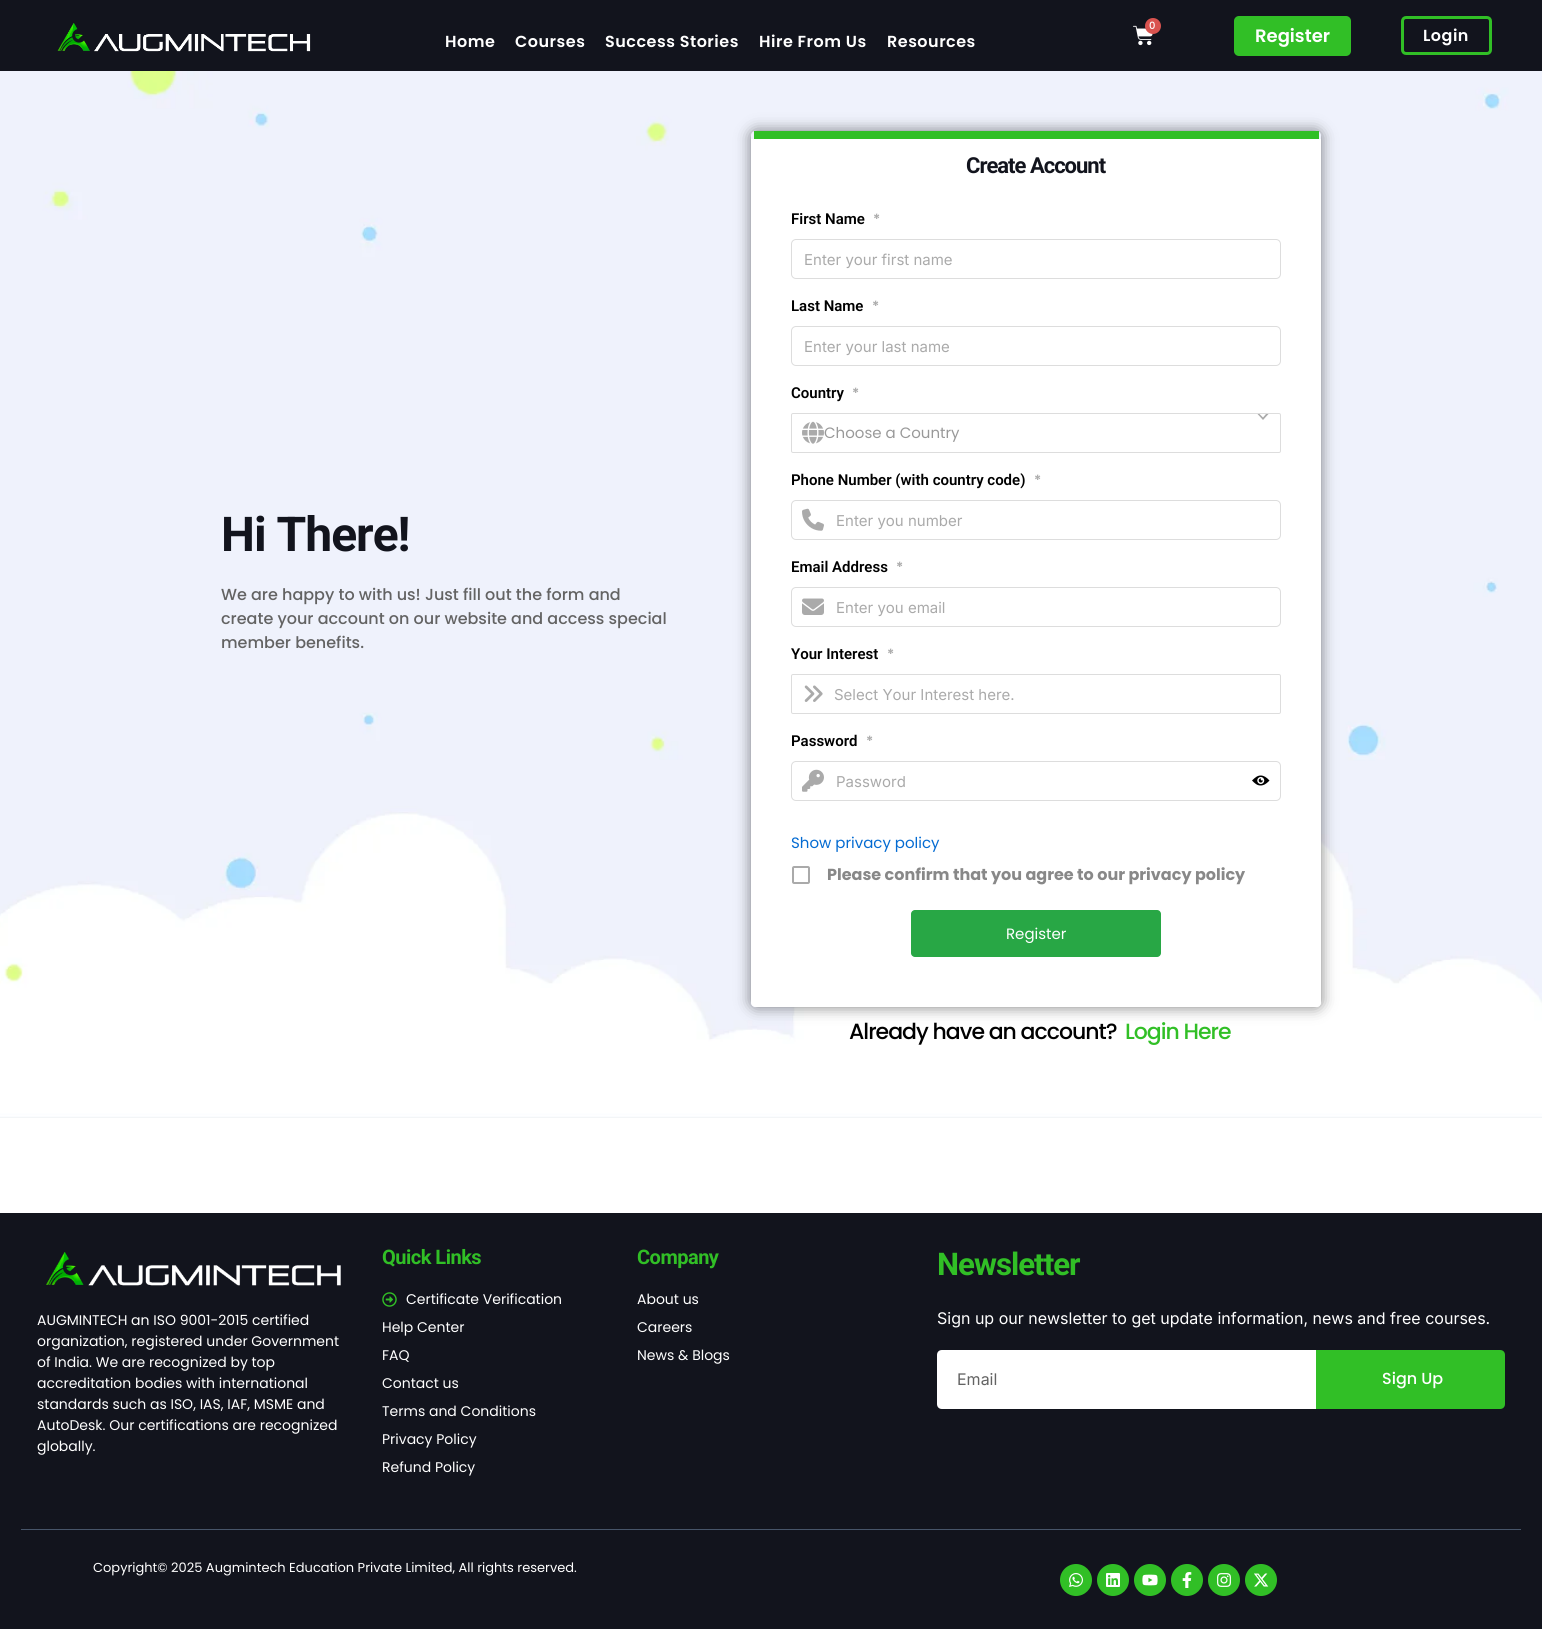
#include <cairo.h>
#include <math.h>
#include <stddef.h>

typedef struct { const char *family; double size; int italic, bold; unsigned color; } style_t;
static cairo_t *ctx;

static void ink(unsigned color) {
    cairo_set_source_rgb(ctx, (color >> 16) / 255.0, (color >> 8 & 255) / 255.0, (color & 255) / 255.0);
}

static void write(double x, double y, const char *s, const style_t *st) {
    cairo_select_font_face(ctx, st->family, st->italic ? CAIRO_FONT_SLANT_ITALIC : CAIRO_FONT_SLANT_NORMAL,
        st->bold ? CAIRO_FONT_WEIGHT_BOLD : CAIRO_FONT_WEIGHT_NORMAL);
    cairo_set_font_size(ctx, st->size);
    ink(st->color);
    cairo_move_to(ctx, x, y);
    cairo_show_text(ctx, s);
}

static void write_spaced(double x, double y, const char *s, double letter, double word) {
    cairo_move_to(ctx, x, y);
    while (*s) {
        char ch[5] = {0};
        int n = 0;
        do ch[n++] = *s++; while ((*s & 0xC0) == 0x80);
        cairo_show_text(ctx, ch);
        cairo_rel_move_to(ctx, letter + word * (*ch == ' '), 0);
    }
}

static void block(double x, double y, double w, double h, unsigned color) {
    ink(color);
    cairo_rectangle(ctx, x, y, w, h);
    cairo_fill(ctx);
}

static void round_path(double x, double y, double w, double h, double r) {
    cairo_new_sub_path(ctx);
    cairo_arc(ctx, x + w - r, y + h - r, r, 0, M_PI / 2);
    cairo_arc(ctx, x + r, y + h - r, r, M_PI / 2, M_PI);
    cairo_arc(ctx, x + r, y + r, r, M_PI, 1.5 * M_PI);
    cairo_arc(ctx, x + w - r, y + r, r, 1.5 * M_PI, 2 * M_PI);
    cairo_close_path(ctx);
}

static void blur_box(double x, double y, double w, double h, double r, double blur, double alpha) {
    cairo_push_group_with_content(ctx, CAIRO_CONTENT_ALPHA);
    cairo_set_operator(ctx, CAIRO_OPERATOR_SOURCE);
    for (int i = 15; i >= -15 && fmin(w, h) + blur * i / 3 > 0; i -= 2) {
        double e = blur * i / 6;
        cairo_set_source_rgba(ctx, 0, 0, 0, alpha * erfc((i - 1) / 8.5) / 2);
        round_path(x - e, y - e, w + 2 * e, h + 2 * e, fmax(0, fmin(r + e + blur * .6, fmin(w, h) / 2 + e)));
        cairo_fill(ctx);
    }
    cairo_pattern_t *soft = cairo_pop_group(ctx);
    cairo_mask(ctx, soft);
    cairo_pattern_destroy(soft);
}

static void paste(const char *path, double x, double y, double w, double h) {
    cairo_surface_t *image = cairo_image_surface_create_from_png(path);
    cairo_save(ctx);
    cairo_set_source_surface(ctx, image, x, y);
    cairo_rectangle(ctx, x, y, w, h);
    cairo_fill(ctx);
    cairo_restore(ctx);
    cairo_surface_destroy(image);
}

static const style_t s1 = {"Poppins Medium", 10, 0, 0, 0xffffff};
static const style_t s2 = {"Poppins SemiBold", 18, 0, 0, 0xffffff};
static const style_t s3 = {"Poppins Medium", 16, 0, 0, 0x636363};
static const style_t s4 = {"Roboto SemiBold", 15, 0, 0, 0x000000};
static const style_t s5 = {"Poppins SemiBold", 14, 0, 0, 0xaaaaaa};
static const style_t s6 = {"Inter", 15, 0, 0, 0xaaaaaa};
static const style_t s7 = {"Poppins", 15, 0, 0, 0x999999};
static const style_t s8 = {"Poppins", 15, 0, 0, 0x046bd2};
static const style_t s9 = {"Poppins", 16, 0, 1, 0x888888};
static const style_t s10 = {"Poppins", 15, 0, 0, 0xffffff};
static const style_t s11 = {"Poppins", 14, 0, 0, 0xffffff};
static const style_t s12 = {"Inter", 16, 0, 0, 0xffffff};
static const style_t s13 = {"Inter", 16, 0, 0, 0x636363};
static const style_t s14 = {"Poppins Medium", 16, 0, 0, 0xffffff};
static const style_t s15 = {"Poppins", 13, 0, 0, 0xffffff};

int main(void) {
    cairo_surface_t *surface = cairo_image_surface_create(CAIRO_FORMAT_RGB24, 1542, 1629);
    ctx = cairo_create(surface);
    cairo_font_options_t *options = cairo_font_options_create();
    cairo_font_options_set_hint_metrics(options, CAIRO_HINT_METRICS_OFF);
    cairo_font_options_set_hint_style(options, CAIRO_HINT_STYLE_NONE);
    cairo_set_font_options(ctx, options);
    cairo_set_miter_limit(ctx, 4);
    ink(0xffffff);
    cairo_paint(ctx);
    block(0, 0, 1542, 71, 0x12141d);
    paste("pic1.png", 57, 23, 254, 29);
    cairo_select_font_face(ctx, "Poppins SemiBold", CAIRO_FONT_SLANT_NORMAL, CAIRO_FONT_WEIGHT_NORMAL);
    cairo_set_font_size(ctx, 16);
    ink(0xffffff);
    write_spaced(445, 47, "Home", 0.5, 0);
    write_spaced(515, 47, "Courses", 0.5, 0);
    write_spaced(605, 47, "Success Stories", 0.5, 0);
    write_spaced(759, 47, "Hire From Us", 0.5, 0);
    write_spaced(887, 47, "Resources", 0.5, 0);
    paste("pic2.png", 1133, 25, 20, 21);
    ink(0xd9534f);
    cairo_arc(ctx, 1153, 26, 8, 0, 2 * M_PI);
    cairo_fill(ctx);
    write(1149, 29, "0", &s1);
    ink(0x31bf26);
    round_path(1234, 16, 117, 40, 5);
    cairo_fill(ctx);
    write(1255, 42, "Register", &s2);
    round_path(1402.5, 17.5, 88, 36, 3.5);
    ink(0x31bf26);
    cairo_set_line_width(ctx, 3);
    cairo_stroke(ctx);
    cairo_set_font_size(ctx, 16);
    ink(0xffffff);
    write_spaced(1423, 41, "Login", 0.5, 0);
    paste("pic3.png", 0, 71, 1542, 1047);
    cairo_select_font_face(ctx, "Roboto", CAIRO_FONT_SLANT_NORMAL, CAIRO_FONT_WEIGHT_BOLD);
    cairo_set_font_size(ctx, 48);
    ink(0x12141d);
    write_spaced(221, 551, "Hi There!", -1, 0);
    write(221, 600, "We are happy to with us! Just fill out the form and", &s3);
    write(221, 624, "create your account on our website and access special", &s3);
    write(221, 648, "member benefits.", &s3);
    cairo_save(ctx);
    cairo_set_fill_rule(ctx, CAIRO_FILL_RULE_EVEN_ODD);
    cairo_new_path(ctx);
    cairo_move_to(ctx, 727, 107);
    cairo_line_to(ctx, 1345, 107);
    cairo_line_to(ctx, 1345, 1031);
    cairo_line_to(ctx, 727, 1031);
    cairo_close_path(ctx);
    cairo_move_to(ctx, 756, 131);
    cairo_line_to(ctx, 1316, 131);
    cairo_curve_to(ctx, 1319, 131, 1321, 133, 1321, 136);
    cairo_line_to(ctx, 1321, 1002);
    cairo_curve_to(ctx, 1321, 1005, 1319, 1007, 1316, 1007);
    cairo_line_to(ctx, 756, 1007);
    cairo_curve_to(ctx, 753, 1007, 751, 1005, 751, 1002);
    cairo_line_to(ctx, 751, 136);
    cairo_curve_to(ctx, 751, 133, 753, 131, 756, 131);
    cairo_close_path(ctx);
    cairo_clip(ctx);
    ink(0x000000);
    blur_box(751, 131, 570, 876, 5, 7.5, 0.5);
    cairo_restore(ctx);
    ink(0xffffff);
    cairo_new_path(ctx);
    cairo_move_to(ctx, 756, 139);
    cairo_line_to(ctx, 1321, 139);
    cairo_line_to(ctx, 1321, 1002);
    cairo_curve_to(ctx, 1321, 1005, 1319, 1007, 1316, 1007);
    cairo_line_to(ctx, 756, 1007);
    cairo_curve_to(ctx, 753, 1007, 751, 1005, 751, 1002);
    cairo_line_to(ctx, 751, 139);
    cairo_close_path(ctx);
    cairo_fill(ctx);
    block(754, 131, 565, 8, 0x31bf26);
    cairo_select_font_face(ctx, "Roboto", CAIRO_FONT_SLANT_NORMAL, CAIRO_FONT_WEIGHT_BOLD);
    cairo_set_font_size(ctx, 22);
    ink(0x12141d);
    write_spaced(966, 173, "Create Account", -1, 0);
    write(791, 224, "First Name", &s4);
    write(873, 224, "*", &s5);
    round_path(791.5, 239.5, 489, 39, 4.5);
    ink(0xdddddd);
    cairo_set_line_width(ctx, 1);
    cairo_stroke(ctx);
    write(804, 265, "Enter your first name", &s6);
    write(791, 311, "Last Name", &s4);
    write(872, 311, "*", &s5);
    round_path(791.5, 326.5, 489, 39, 4.5);
    ink(0xdddddd);
    cairo_stroke(ctx);
    write(804, 352, "Enter your last name", &s6);
    write(791, 398, "Country", &s4);
    write(852, 398, "*", &s5);
    round_path(791.5, 413.5, 489, 39, 1.5);
    ink(0xdddddd);
    cairo_stroke(ctx);
    paste("pic4.png", 802, 421, 22, 23);
    ink(0xaaaaaa);
    cairo_new_path(ctx);
    cairo_move_to(ctx, 1259.5, 414);
    cairo_line_to(ctx, 1263, 417.5);
    cairo_line_to(ctx, 1266, 414);
    cairo_line_to(ctx, 1268.5, 414);
    cairo_line_to(ctx, 1263, 420);
    cairo_line_to(ctx, 1257.5, 414);
    cairo_close_path(ctx);
    cairo_fill(ctx);
    write(824, 438, "Choose a Country", &s7);
    write(791, 485, "Phone Number (with country code)", &s4);
    write(1034, 485, "*", &s5);
    round_path(791.5, 500.5, 489, 39, 4.5);
    ink(0xdddddd);
    cairo_stroke(ctx);
    paste("pic5.png", 802, 508, 22, 23);
    write(836, 526, "Enter you number", &s6);
    write(791, 572, "Email Address", &s4);
    write(896, 572, "*", &s5);
    round_path(791.5, 587.5, 489, 39, 4.5);
    ink(0xdddddd);
    cairo_stroke(ctx);
    paste("pic6.png", 802, 598, 22, 17);
    write(836, 613, "Enter you email", &s6);
    write(791, 659, "Your Interest", &s4);
    write(887, 659, "*", &s5);
    round_path(791.5, 674.5, 489, 39, 1.5);
    ink(0xdddddd);
    cairo_stroke(ctx);
    paste("pic7.png", 804, 685, 19, 17);
    write(834, 700, "Select Your Interest here.", &s6);
    write(791, 746, "Password", &s4);
    write(866, 746, "*", &s5);
    round_path(791.5, 761.5, 489, 39, 4.5);
    ink(0xdddddd);
    cairo_stroke(ctx);
    paste("pic8.png", 802, 769, 22, 23);
    write(836, 787, "Password", &s6);
    paste("pic9.png", 1252, 775, 18, 11);
    write(791, 848, "Show privacy policy", &s8);
    paste("pic10.png", 792, 866, 18, 18);
    write(827, 880, "Please confirm that you agree to our privacy policy", &s9);
    ink(0x28a745);
    round_path(911, 910, 250, 47, 4);
    cairo_fill(ctx);
    write(1006, 939, "Register", &s10);
    cairo_select_font_face(ctx, "Poppins Medium", CAIRO_FONT_SLANT_NORMAL, CAIRO_FONT_WEIGHT_NORMAL);
    cairo_set_font_size(ctx, 22);
    ink(0x000000);
    write_spaced(849, 1039, "Already have an account?", -1, 0);
    ink(0x31bf26);
    write_spaced(1125, 1039, "Login Here", -1, 0);
    block(0, 1213, 1542, 416, 0x12141d);
    block(21, 1529, 1500, 1, 0x475569);
    paste("pic11.png", 46, 1252, 295, 34);
    write(37, 1325, "AUGMINTECH an ISO 9001-2015 certified", &s11);
    write(37, 1346, "organization, registered under Government", &s11);
    write(37, 1367, "of India. We are recognized by top", &s11);
    write(37, 1388, "accreditation bodies with international", &s11);
    write(37, 1409, "standards such as ISO, IAS, IAF, MSME and", &s11);
    write(37, 1430, "AutoDesk. Our certifications are recognized", &s11);
    write(37, 1451, "globally.", &s11);
    cairo_select_font_face(ctx, "Roboto", CAIRO_FONT_SLANT_NORMAL, CAIRO_FONT_WEIGHT_BOLD);
    cairo_set_font_size(ctx, 20);
    ink(0x31bf26);
    write_spaced(382, 1264, "Quick Links", -0.5, 0);
    paste("pic12.png", 382, 1292, 15, 15);
    write(406, 1304, "Certificate Verification", &s11);
    write(382, 1332, "Help Center", &s11);
    write(382, 1360, "FAQ", &s11);
    write(382, 1388, "Contact us", &s11);
    write(382, 1416, "Terms and Conditions", &s11);
    write(382, 1444, "Privacy Policy", &s11);
    write(382, 1472, "Refund Policy", &s11);
    cairo_select_font_face(ctx, "Roboto", CAIRO_FONT_SLANT_NORMAL, CAIRO_FONT_WEIGHT_BOLD);
    cairo_set_font_size(ctx, 20);
    ink(0x31bf26);
    write_spaced(637, 1264, "Company", -0.5, 0);
    write(637, 1304, "About us", &s11);
    write(637, 1332, "Careers", &s11);
    write(637, 1360, "News & Blogs", &s11);
    cairo_select_font_face(ctx, "Roboto", CAIRO_FONT_SLANT_NORMAL, CAIRO_FONT_WEIGHT_BOLD);
    cairo_set_font_size(ctx, 31.25);
    ink(0x31bf26);
    write_spaced(937, 1275, "Newsletter", -1, 0);
    write(937, 1324, "Sign up our newsletter to get update information, news and free courses.", &s12);
    cairo_new_path(ctx);
    cairo_move_to(ctx, 942, 1350);
    cairo_line_to(ctx, 1316, 1350);
    cairo_line_to(ctx, 1316, 1409);
    cairo_line_to(ctx, 942, 1409);
    cairo_curve_to(ctx, 939, 1409, 937, 1407, 937, 1404);
    cairo_line_to(ctx, 937, 1355);
    cairo_curve_to(ctx, 937, 1352, 939, 1350, 942, 1350);
    cairo_close_path(ctx);
    cairo_fill(ctx);
    write(957, 1385, "Email", &s13);
    ink(0x31bf26);
    cairo_new_path(ctx);
    cairo_move_to(ctx, 1316, 1350);
    cairo_line_to(ctx, 1500, 1350);
    cairo_curve_to(ctx, 1503, 1350, 1505, 1352, 1505, 1355);
    cairo_line_to(ctx, 1505, 1404);
    cairo_curve_to(ctx, 1505, 1407, 1503, 1409, 1500, 1409);
    cairo_line_to(ctx, 1316, 1409);
    cairo_close_path(ctx);
    cairo_fill(ctx);
    write(1382, 1384, "Sign Up", &s14);
    write(93, 1572, "Copyright© 2025 Augmintech Education Private Limited, All rights reserved.", &s15);
    ink(0x31bf26);
    cairo_new_path(ctx);
    cairo_arc(ctx, 1076, 1580, 16, 0, 2 * M_PI);
    cairo_fill(ctx);
    paste("pic13.png", 1069, 1573, 14, 14);
    cairo_arc(ctx, 1113, 1580, 16, 0, 2 * M_PI);
    cairo_fill(ctx);
    paste("pic14.png", 1106, 1573, 14, 14);
    cairo_arc(ctx, 1150, 1580, 16, 0, 2 * M_PI);
    cairo_fill(ctx);
    paste("pic15.png", 1142, 1574, 16, 12);
    cairo_arc(ctx, 1187, 1580, 16, 0, 2 * M_PI);
    cairo_fill(ctx);
    paste("pic16.png", 1182, 1572, 10, 16);
    cairo_arc(ctx, 1224, 1580, 16, 0, 2 * M_PI);
    cairo_fill(ctx);
    paste("pic17.png", 1217, 1573, 14, 14);
    cairo_arc(ctx, 1261, 1580, 16, 0, 2 * M_PI);
    cairo_fill(ctx);
    paste("pic18.png", 1254, 1573, 15, 14);
    cairo_surface_write_to_png(surface, "screenshot.png");
    cairo_font_options_destroy(options);
    cairo_destroy(ctx);
    cairo_surface_destroy(surface);
    return 0;
}
